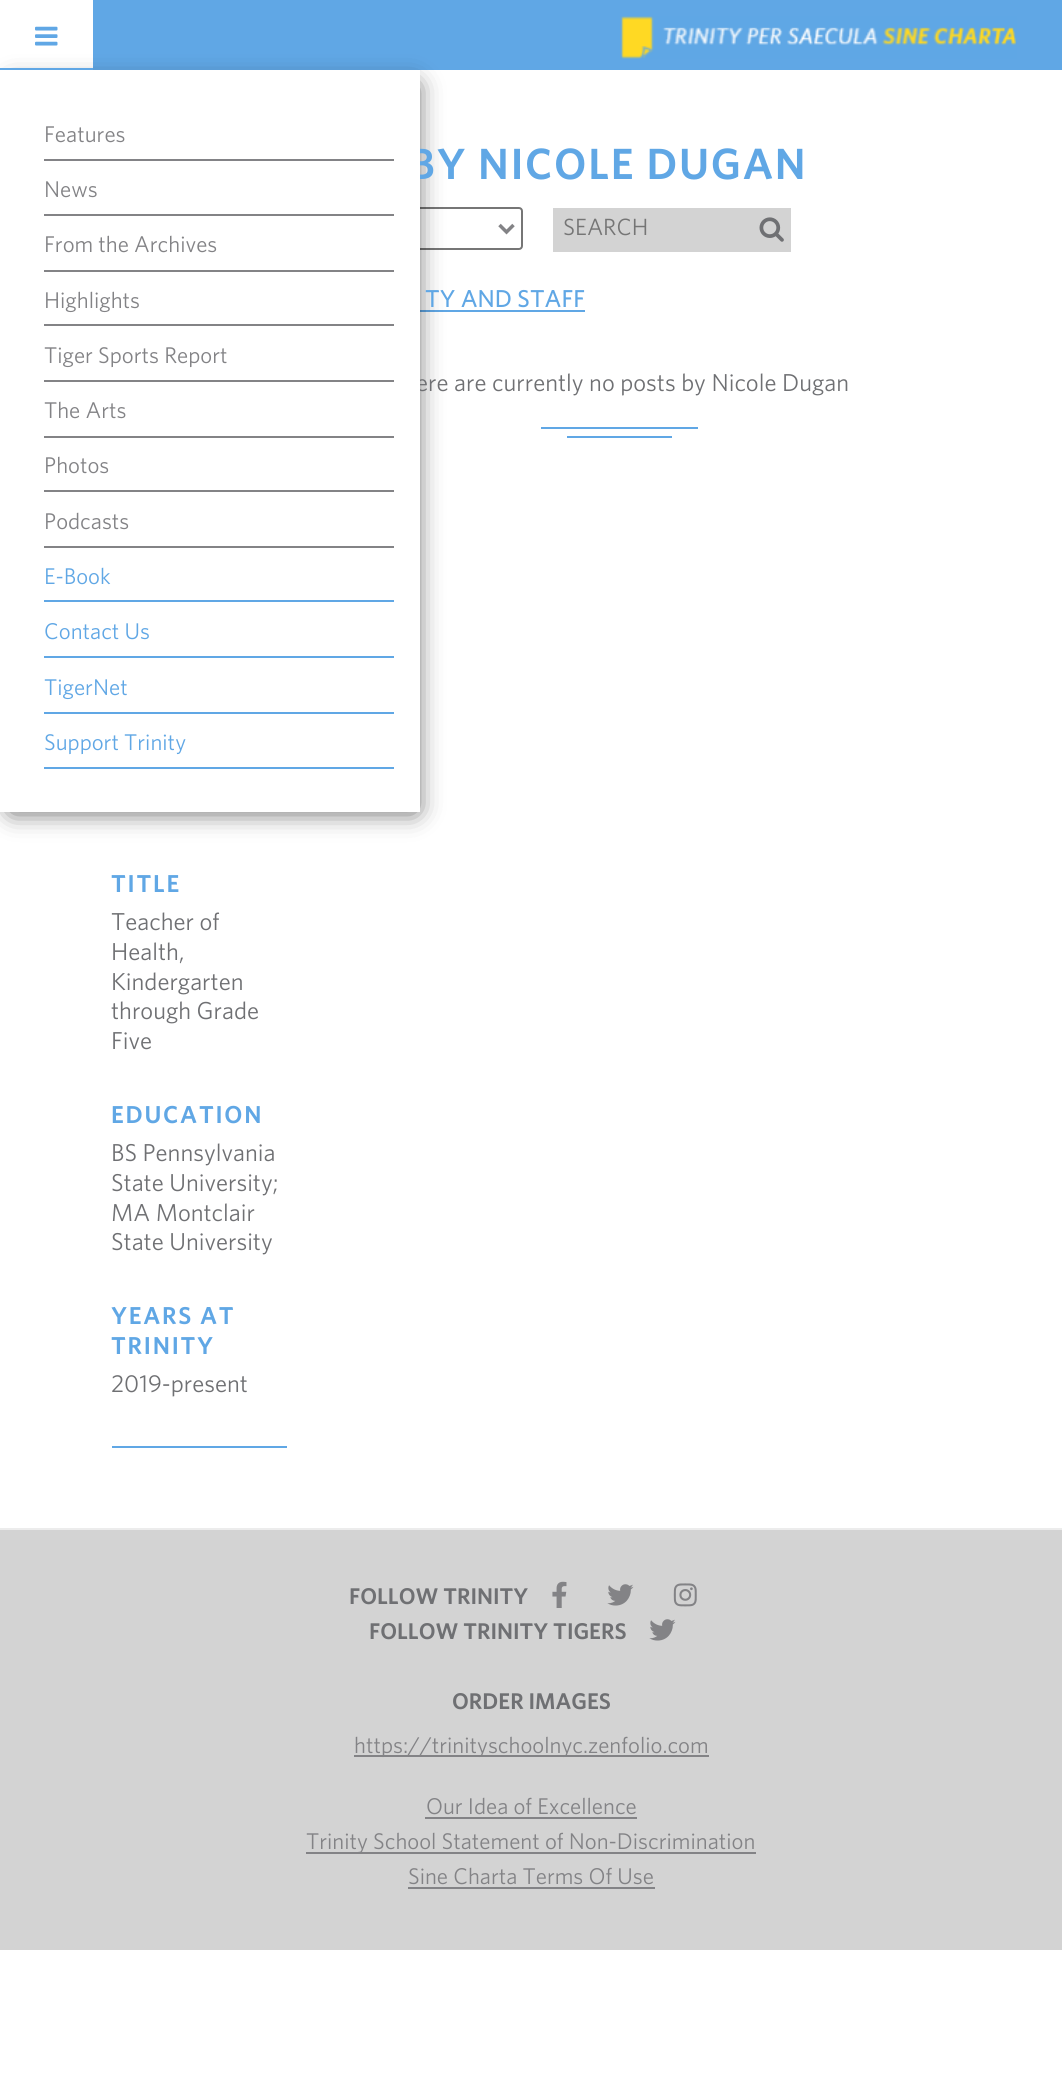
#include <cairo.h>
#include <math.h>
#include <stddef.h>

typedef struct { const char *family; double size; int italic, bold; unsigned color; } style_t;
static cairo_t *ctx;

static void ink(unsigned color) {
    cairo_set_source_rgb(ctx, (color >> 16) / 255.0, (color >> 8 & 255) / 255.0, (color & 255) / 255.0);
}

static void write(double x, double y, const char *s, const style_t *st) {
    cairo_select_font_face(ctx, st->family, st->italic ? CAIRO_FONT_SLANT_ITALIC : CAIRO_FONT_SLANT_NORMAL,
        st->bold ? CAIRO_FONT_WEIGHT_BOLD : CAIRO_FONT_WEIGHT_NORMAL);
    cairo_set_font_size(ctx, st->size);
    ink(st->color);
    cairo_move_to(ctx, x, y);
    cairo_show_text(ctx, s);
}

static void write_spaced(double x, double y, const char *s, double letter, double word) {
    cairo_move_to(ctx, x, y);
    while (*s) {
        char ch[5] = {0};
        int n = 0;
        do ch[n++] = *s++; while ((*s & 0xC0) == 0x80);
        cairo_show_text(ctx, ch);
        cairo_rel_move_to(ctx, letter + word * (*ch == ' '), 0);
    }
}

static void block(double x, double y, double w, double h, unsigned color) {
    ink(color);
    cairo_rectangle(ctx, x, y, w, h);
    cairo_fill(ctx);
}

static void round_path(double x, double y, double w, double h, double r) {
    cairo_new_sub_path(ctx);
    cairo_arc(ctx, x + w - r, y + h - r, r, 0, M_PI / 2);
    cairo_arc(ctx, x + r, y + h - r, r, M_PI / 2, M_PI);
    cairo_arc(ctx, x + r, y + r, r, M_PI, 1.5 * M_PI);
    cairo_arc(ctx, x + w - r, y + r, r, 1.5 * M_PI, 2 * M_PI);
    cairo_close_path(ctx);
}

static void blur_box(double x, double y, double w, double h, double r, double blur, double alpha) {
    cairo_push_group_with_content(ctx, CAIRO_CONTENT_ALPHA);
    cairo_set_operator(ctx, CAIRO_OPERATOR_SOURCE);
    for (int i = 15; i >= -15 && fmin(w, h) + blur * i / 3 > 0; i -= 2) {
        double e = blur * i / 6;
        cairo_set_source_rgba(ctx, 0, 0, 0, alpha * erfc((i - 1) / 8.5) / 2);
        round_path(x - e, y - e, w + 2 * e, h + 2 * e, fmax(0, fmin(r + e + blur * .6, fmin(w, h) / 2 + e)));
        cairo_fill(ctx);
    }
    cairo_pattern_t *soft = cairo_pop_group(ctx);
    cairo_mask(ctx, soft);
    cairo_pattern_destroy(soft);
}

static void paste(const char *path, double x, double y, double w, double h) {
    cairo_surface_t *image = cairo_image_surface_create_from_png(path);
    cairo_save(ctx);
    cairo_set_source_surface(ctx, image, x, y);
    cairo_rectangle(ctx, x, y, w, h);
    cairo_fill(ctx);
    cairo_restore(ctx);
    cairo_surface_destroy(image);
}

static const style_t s1 = {"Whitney", 24.5, 0, 0, 0x6f7073};
static const style_t s2 = {"Whitney", 22.75, 0, 0, 0x838386};
static const style_t s3 = {"Whitney", 22.75, 0, 0, 0x60a7e5};
static const style_t s4 = {"Whitney", 23.5, 0, 0, 0x757575};
static const style_t s5 = {"Whitney Medium", 24.5, 0, 0, 0x60a7e5};
static const style_t s6 = {"Whitney SemiBold", 22.75, 0, 0, 0x6f7073};

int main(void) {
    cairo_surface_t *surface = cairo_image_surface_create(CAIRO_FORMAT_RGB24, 1062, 2080);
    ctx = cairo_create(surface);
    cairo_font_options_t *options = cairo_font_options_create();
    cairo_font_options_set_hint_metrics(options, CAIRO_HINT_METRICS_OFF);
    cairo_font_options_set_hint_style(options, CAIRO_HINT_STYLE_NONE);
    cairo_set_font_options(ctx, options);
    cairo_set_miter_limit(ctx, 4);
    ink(0xffffff);
    cairo_paint(ctx);
    block(93, 0, 969, 70, 0x60a7e5);
    paste("pic1.png", 620, 16, 397, 43);
    paste("pic2.png", 35, 26, 23, 20);
    round_path(272, 208, 250, 41, 3);
    ink(0x767676);
    cairo_stroke(ctx);
    block(420, 310, 165, 2, 0x60a7e5);
    ink(0x000000);
    blur_box(12, 86, 403, 724, 0, 13, 0.75);
    block(0, 68, 93, 2, 0x60a7e5);
    cairo_select_font_face(ctx, "Whitney SemiBold", CAIRO_FONT_SLANT_NORMAL, CAIRO_FONT_WEIGHT_NORMAL);
    cairo_set_font_size(ctx, 43.75);
    write_spaced(410, 179, "BY NICOLE DUGAN", 1.75, 0);
    write(416, 391, "ere are currently no posts by Nicole Dugan", &s1);
    block(0, 70, 420, 742, 0xffffff);
    block(44, 159, 350, 2, 0x838386);
    write(44, 142, "Features", &s2);
    block(44, 214, 350, 2, 0x838386);
    write(44, 197, "News", &s2);
    block(44, 270, 350, 2, 0x838386);
    write(44, 252, "From the Archives", &s2);
    block(44, 324, 350, 2, 0x838386);
    write(44, 308, "Highlights", &s2);
    block(44, 380, 350, 2, 0x838386);
    write(44, 363, "Tiger Sports Report", &s2);
    block(44, 436, 350, 2, 0x838386);
    write(44, 418, "The Arts", &s2);
    block(44, 490, 350, 2, 0x838386);
    write(44, 473, "Photos", &s2);
    block(44, 546, 350, 2, 0x838386);
    write(44, 529, "Podcasts", &s2);
    block(44, 600, 350, 2, 0x60a7e5);
    write(44, 584, "E-Book", &s3);
    block(44, 656, 350, 2, 0x60a7e5);
    write(44, 639, "Contact Us", &s3);
    block(44, 712, 350, 2, 0x60a7e5);
    write(44, 695, "TigerNet", &s3);
    block(44, 767, 350, 2, 0x60a7e5);
    write(44, 750, "Support Trinity", &s3);
    cairo_new_path(ctx);
    cairo_move_to(ctx, 499.5, 225);
    cairo_line_to(ctx, 506.5, 232);
    cairo_line_to(ctx, 513.5, 225);
    ink(0x838386);
    cairo_set_line_width(ctx, 3.5);
    cairo_stroke(ctx);
    block(553, 208, 238, 44, 0xd3d3d3);
    write(563, 235, "SEARCH", &s4);
    paste("pic3.png", 759, 217, 25, 25);
    write(425, 307, "TY AND STAFF", &s5);
    block(541, 427, 157, 2, 0x60a7e5);
    block(567, 436, 105, 2, 0x60a7e5);
    block(112, 1446, 175, 2, 0x60a7e5);
    cairo_select_font_face(ctx, "Whitney SemiBold", CAIRO_FONT_SLANT_NORMAL, CAIRO_FONT_WEIGHT_NORMAL);
    write_spaced(111, 892, "TITLE", 1.75, 0);
    write(111, 930, "Teacher of", &s1);
    write(111, 960, "Health,", &s1);
    write(111, 990, "Kindergarten", &s1);
    write(111, 1019, "through Grade", &s1);
    write(111, 1049, "Five", &s1);
    cairo_select_font_face(ctx, "Whitney SemiBold", CAIRO_FONT_SLANT_NORMAL, CAIRO_FONT_WEIGHT_NORMAL);
    ink(0x60a7e5);
    write_spaced(111, 1123, "EDUCATION", 1.75, 0);
    write(111, 1161, "BS Pennsylvania", &s1);
    write(111, 1191, "State University;", &s1);
    write(111, 1221, "MA Montclair", &s1);
    write(111, 1250, "State University", &s1);
    cairo_select_font_face(ctx, "Whitney SemiBold", CAIRO_FONT_SLANT_NORMAL, CAIRO_FONT_WEIGHT_NORMAL);
    ink(0x60a7e5);
    write_spaced(111, 1324, "YEARS AT", 1.75, 0);
    write_spaced(111, 1354, "TRINITY", 1.75, 0);
    write(111, 1392, "2019-present", &s1);
    block(0, 1530, 1062, 420, 0xd3d3d3);
    block(0, 1528, 1062, 2, 0xececec);
    write(349, 1604, "FOLLOW TRINITY", &s6);
    paste("pic4.png", 552, 1581, 15, 27);
    paste("pic5.png", 607, 1584, 27, 22);
    paste("pic6.png", 673, 1583, 24, 24);
    write(369, 1639, "FOLLOW TRINITY TIGERS", &s6);
    paste("pic5.png", 649, 1619, 27, 22);
    write(452, 1709, "ORDER IMAGES", &s6);
    block(354, 1755, 355, 2, 0x838386);
    write(354, 1753, "https://trinityschoolnyc.zenfolio.com", &s2);
    write(426, 1814, "Our Idea of Excellence", &s2);
    block(425, 1817, 212, 2, 0x838386);
    block(306, 1852, 450, 2, 0x838386);
    write(306, 1849, "Trinity School Statement of Non-Discrimination", &s2);
    write(408, 1884, "Sine Charta Terms Of Use", &s2);
    block(408, 1887, 247, 2, 0x838386);
    cairo_surface_write_to_png(surface, "screenshot.png");
    cairo_font_options_destroy(options);
    cairo_destroy(ctx);
    cairo_surface_destroy(surface);
    return 0;
}
